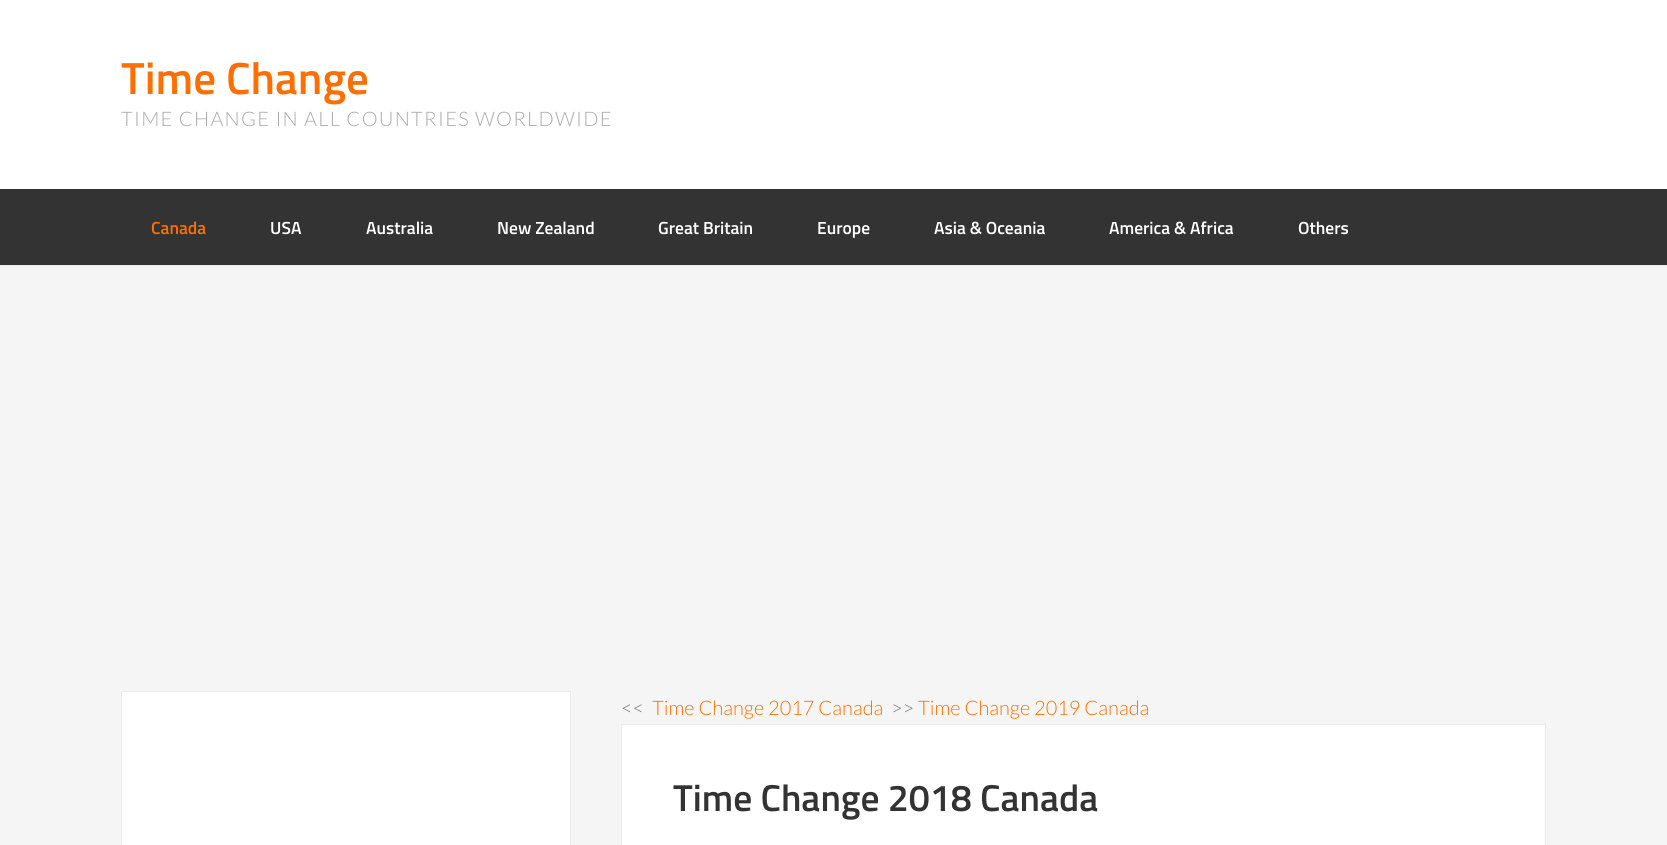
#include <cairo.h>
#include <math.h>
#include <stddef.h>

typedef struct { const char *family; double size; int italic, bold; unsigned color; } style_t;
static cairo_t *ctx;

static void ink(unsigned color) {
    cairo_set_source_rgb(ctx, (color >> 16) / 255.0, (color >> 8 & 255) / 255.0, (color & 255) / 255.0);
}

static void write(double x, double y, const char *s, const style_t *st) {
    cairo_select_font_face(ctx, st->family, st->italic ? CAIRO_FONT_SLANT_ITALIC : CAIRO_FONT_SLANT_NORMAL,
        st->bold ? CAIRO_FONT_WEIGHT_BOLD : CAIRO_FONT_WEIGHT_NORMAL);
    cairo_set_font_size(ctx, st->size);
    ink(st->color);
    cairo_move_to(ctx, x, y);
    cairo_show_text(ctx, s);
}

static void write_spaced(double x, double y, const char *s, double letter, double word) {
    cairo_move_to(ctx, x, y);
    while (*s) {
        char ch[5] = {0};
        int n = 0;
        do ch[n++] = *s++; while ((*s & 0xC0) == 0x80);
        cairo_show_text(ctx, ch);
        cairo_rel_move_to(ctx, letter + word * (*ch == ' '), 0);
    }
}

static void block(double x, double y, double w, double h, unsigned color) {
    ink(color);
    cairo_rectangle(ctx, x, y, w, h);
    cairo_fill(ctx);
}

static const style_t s1 = {"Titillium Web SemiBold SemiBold", 45, 0, 0, 0xff6f00};
static const style_t s2 = {"Titillium Web SemiBold SemiBold", 17.5, 0, 0, 0xff6f00};
static const style_t s3 = {"Titillium Web SemiBold SemiBold", 17.5, 0, 0, 0xffffff};
static const style_t s4 = {"Lato Light", 20, 0, 0, 0x777777};
static const style_t s5 = {"Lato Light", 20, 0, 0, 0xff6f00};
static const style_t s6 = {"Titillium Web SemiBold SemiBold", 37.5, 0, 0, 0x333333};

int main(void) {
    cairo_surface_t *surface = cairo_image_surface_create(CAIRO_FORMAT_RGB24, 1667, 845);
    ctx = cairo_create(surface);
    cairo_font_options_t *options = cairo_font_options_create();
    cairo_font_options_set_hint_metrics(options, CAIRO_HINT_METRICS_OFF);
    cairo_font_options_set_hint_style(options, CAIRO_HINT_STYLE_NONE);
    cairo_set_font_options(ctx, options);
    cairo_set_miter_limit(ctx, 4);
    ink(0xffffff);
    cairo_paint(ctx);
    write(121, 94, "Time Change", &s1);
    cairo_select_font_face(ctx, "Lato Light", CAIRO_FONT_SLANT_NORMAL, CAIRO_FONT_WEIGHT_NORMAL);
    cairo_set_font_size(ctx, 20);
    ink(0xaaaaaa);
    write_spaced(121, 126, "TIME CHANGE IN ALL COUNTRIES WORLDWIDE", 1.25, 0);
    block(0, 189, 1667, 76, 0x333333);
    write(151, 234, "Canada", &s2);
    write(270, 234, "USA", &s3);
    write(366, 234, "Australia", &s3);
    write(497, 234, "New Zealand", &s3);
    write(658, 234, "Great Britain", &s3);
    write(817, 234, "Europe", &s3);
    write(934, 234, "Asia & Oceania", &s3);
    write(1109, 234, "America & Africa", &s3);
    write(1298, 234, "Others", &s3);
    block(0, 266, 1667, 579, 0xf5f5f5);
    block(0, 265, 1667, 1, 0xececec);
    ink(0xffffff);
    cairo_rectangle(ctx, 121.5, 691.5, 449, 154);
    cairo_fill_preserve(ctx);
    ink(0xececec);
    cairo_set_line_width(ctx, 1);
    cairo_stroke(ctx);
    write(621, 715, "<<", &s4);
    write(652, 715, "Time Change 2017 Canada", &s5);
    write(891, 715, ">>", &s4);
    write(918, 715, "Time Change 2019 Canada", &s5);
    ink(0xffffff);
    cairo_rectangle(ctx, 621.5, 724.5, 924, 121);
    cairo_fill_preserve(ctx);
    ink(0xececec);
    cairo_stroke(ctx);
    write(673, 811, "Time Change 2018 Canada", &s6);
    cairo_surface_write_to_png(surface, "screenshot.png");
    cairo_font_options_destroy(options);
    cairo_destroy(ctx);
    cairo_surface_destroy(surface);
    return 0;
}
